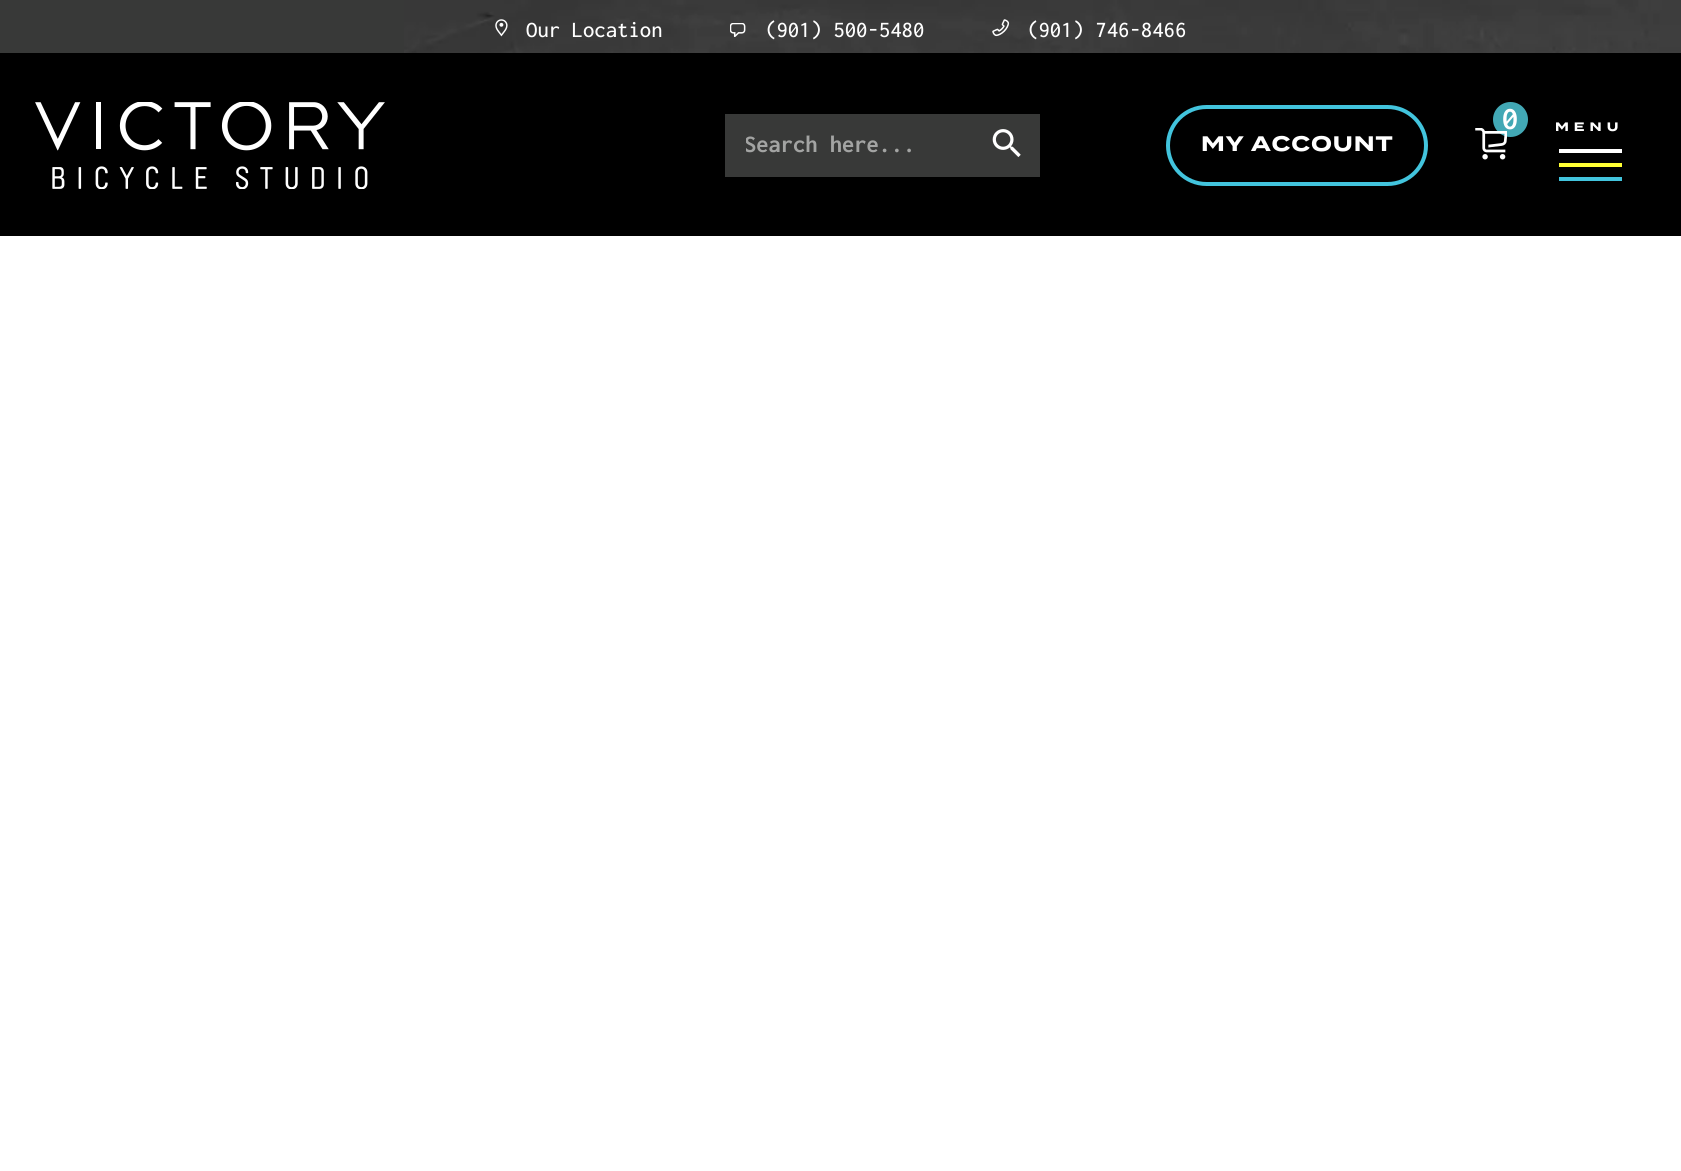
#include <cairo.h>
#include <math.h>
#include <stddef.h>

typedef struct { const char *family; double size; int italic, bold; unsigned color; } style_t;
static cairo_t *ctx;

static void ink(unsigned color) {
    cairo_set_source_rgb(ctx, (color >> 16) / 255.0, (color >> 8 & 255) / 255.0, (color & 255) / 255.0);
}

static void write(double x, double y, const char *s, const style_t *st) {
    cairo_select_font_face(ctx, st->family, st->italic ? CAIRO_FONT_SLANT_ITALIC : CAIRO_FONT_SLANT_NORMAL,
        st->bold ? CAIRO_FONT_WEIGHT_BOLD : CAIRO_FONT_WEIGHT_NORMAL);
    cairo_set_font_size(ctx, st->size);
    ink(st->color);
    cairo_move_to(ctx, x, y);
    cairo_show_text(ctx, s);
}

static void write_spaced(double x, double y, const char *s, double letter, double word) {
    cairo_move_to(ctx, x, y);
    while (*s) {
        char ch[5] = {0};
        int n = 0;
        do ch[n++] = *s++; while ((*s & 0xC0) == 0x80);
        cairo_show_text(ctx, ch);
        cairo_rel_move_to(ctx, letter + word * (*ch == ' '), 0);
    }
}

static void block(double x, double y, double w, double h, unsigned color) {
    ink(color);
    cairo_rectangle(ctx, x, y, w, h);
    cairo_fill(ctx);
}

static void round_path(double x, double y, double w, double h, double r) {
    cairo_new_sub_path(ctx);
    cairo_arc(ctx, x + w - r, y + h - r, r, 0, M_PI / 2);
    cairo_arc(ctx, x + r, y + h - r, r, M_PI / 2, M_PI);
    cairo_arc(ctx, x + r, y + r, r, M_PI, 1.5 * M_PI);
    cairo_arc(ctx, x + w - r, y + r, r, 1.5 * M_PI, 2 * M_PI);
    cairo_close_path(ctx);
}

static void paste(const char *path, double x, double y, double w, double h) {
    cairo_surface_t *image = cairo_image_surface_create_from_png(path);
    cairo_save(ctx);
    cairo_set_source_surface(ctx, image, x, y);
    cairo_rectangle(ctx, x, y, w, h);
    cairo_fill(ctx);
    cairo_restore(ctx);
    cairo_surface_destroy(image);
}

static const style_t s1 = {"Inconsolata Medium", 22.75, 0, 0, 0xffffff};
static const style_t s2 = {"Inconsolata", 32, 0, 1, 0xffffff};
static const style_t s3 = {"Inconsolata", 24.5, 0, 1, 0xa3a4a3};

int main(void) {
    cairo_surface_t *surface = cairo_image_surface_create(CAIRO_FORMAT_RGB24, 1681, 1171);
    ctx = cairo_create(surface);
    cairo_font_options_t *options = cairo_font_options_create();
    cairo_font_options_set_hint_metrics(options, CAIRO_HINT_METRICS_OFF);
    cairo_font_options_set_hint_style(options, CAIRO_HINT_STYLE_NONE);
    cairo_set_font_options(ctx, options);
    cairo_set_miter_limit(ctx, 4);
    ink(0xffffff);
    cairo_paint(ctx);
    block(0, 53, 1681, 183, 0x000000);
    block(0, 0, 1681, 53, 0x383938);
    paste("pic1.png", 404, 0, 1277, 53);
    paste("pic2.png", 495, 19, 13, 18);
    write(526, 37, "Our Location", &s1);
    paste("pic3.png", 730, 23, 16, 14);
    write(765, 37, "(901) 500-5480", &s1);
    paste("pic4.png", 992, 19, 18, 18);
    write(1027, 37, "(901) 746-8466", &s1);
    paste("pic5.png", 35, 102, 350, 87);
    ink(0x42a8b5);
    cairo_arc(ctx, 1510.5, 119.5, 17.5, 0, 2 * M_PI);
    cairo_fill(ctx);
    write(1502, 129, "0", &s2);
    paste("pic6.png", 1475, 128, 32, 32);
    cairo_select_font_face(ctx, "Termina", CAIRO_FONT_SLANT_NORMAL, CAIRO_FONT_WEIGHT_BOLD);
    cairo_set_font_size(ctx, 12.25);
    write_spaced(1555, 131, "MENU", 5, 0);
    block(1559, 163, 63, 4, 0xffff33);
    block(1559, 149, 63, 4, 0xffffff);
    block(1559, 177, 63, 4, 0x42c4dd);
    block(725, 114, 315, 63, 0x383938);
    cairo_save(ctx);
    cairo_rectangle(ctx, 746, 131, 210, 27);
    cairo_clip(ctx);
    write(744, 152, "Search here...", &s3);
    cairo_restore(ctx);
    paste("pic7.png", 992, 129, 29, 28);
    round_path(1168, 107, 258, 77, 38.5);
    ink(0x42c4dd);
    cairo_set_line_width(ctx, 4);
    cairo_stroke(ctx);
    cairo_set_font_size(ctx, 21);
    ink(0xffffff);
    write_spaced(1201, 151, "MY ACCOUNT", 0.9, 0);
    cairo_surface_write_to_png(surface, "screenshot.png");
    cairo_font_options_destroy(options);
    cairo_destroy(ctx);
    cairo_surface_destroy(surface);
    return 0;
}
